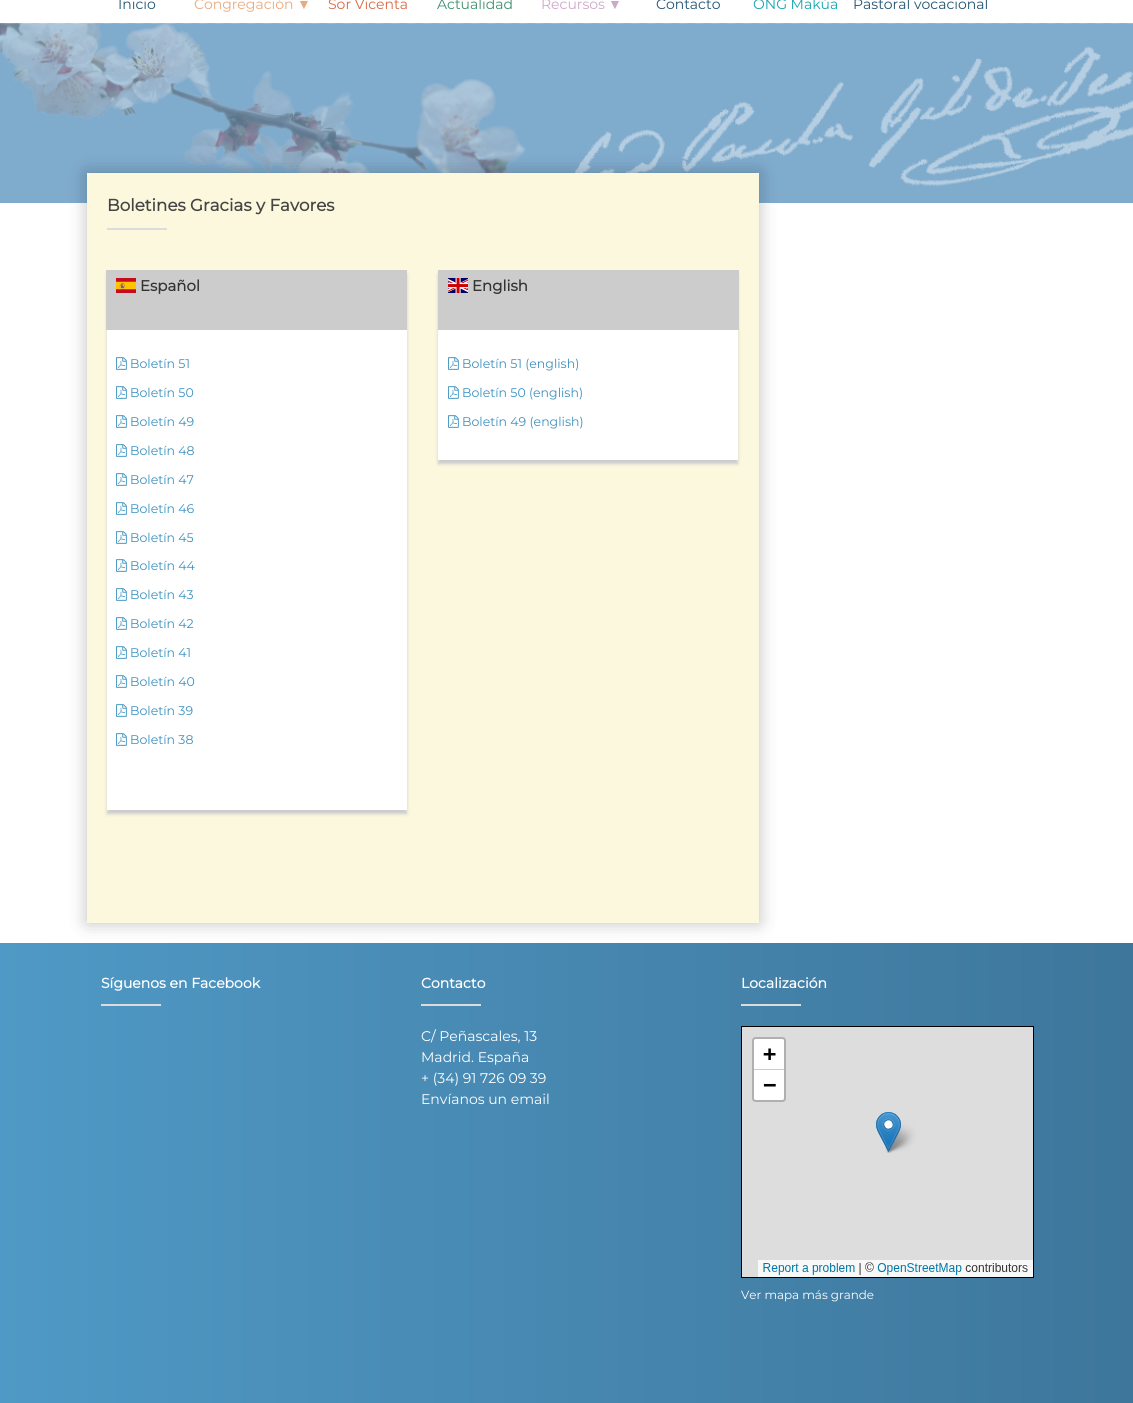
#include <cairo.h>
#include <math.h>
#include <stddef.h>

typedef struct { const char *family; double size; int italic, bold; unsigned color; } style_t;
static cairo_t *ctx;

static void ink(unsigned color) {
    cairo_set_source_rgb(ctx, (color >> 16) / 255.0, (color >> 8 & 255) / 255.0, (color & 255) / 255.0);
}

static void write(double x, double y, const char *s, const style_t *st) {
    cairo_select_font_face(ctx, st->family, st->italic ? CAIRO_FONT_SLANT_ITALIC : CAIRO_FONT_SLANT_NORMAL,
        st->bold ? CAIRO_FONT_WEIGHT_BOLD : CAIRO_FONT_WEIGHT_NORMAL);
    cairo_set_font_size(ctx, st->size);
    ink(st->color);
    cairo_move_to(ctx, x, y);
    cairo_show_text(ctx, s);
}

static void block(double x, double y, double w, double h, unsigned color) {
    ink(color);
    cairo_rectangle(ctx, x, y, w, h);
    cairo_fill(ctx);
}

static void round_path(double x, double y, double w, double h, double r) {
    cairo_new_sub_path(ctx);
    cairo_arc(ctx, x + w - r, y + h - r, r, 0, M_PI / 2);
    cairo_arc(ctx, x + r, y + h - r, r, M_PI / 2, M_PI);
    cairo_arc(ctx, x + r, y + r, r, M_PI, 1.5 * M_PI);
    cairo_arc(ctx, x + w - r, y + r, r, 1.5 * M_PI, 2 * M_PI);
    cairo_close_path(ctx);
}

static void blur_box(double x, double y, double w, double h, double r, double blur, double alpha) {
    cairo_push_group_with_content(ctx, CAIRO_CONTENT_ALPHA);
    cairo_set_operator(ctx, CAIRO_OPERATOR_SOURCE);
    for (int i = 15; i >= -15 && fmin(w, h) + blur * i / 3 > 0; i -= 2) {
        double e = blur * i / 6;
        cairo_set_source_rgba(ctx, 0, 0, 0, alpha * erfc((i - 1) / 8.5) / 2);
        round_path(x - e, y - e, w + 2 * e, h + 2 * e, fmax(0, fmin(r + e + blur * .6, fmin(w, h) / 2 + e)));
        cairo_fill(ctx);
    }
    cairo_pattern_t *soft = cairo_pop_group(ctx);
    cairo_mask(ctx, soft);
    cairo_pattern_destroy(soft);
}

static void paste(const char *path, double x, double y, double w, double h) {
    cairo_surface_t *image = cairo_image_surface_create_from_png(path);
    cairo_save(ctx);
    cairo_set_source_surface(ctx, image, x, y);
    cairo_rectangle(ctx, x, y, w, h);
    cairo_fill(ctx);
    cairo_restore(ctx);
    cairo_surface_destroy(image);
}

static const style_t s1 = {"Montserrat Thin", 14, 0, 0, 0x215472};
static const style_t s2 = {"Montserrat Thin", 14, 0, 0, 0xeaaa7c};
static const style_t s3 = {"Liberation Sans", 14, 0, 0, 0xeaaa7c};
static const style_t s4 = {"Montserrat Thin", 14, 0, 0, 0xd86843};
static const style_t s5 = {"Montserrat Thin", 14, 0, 0, 0x3d8f6e};
static const style_t s6 = {"Montserrat Thin", 14, 0, 0, 0xcea8c8};
static const style_t s7 = {"Liberation Sans", 14, 0, 0, 0xcea8c8};
static const style_t s8 = {"Montserrat Thin", 14, 0, 0, 0x15a4af};
static const style_t s9 = {"Montserrat", 16.75, 0, 1, 0x444444};
static const style_t s10 = {"Montserrat", 15, 0, 1, 0x333333};
static const style_t s11 = {"Montserrat Thin", 12.5, 0, 0, 0x3b91bf};
static const style_t s12 = {"Montserrat", 14, 0, 1, 0xffffff};
static const style_t s13 = {"Montserrat Thin", 14, 0, 0, 0xffffff};
static const style_t s14 = {"Montserrat Thin", 11.9, 0, 0, 0xffffff};

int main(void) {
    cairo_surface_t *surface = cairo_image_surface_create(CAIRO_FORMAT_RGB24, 1133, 1403);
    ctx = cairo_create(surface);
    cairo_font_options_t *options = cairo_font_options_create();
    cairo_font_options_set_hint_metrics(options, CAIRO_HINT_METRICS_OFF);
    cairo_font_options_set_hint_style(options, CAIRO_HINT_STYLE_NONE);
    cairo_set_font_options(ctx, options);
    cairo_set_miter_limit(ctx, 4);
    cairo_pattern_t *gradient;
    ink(0xffffff);
    cairo_paint(ctx);
    write(118, 9, "Inicio", &s1);
    write(194, 9, "Congregación", &s2);
    write(297, 9, "▼", &s3);
    write(328, 9, "Sor Vicenta", &s4);
    write(437, 9, "Actualidad", &s5);
    write(541, 9, "Recursos", &s6);
    write(608, 9, "▼", &s7);
    write(656, 9, "Contacto", &s1);
    write(753, 9, "ONG Makúa", &s8);
    write(853, 9, "Pastoral vocacional", &s1);
    paste("pic1.png", 0, 23, 1133, 180);
    gradient = cairo_pattern_create_linear(1133, 1173, 0, 1173);
    cairo_pattern_add_color_stop_rgba(gradient, 0, 0.243, 0.463, 0.608, 1);
    cairo_pattern_add_color_stop_rgba(gradient, 1, 0.31, 0.6, 0.776, 1);
    cairo_set_source(ctx, gradient);
    cairo_pattern_destroy(gradient);
    cairo_rectangle(ctx, 0, 943, 1133, 460);
    cairo_fill(ctx);
    ink(0x000000);
    blur_box(87, 173, 672, 750, 0, 9, 0.25);
    block(87, 173, 672, 750, 0xfcf8de);
    write(107, 211, "Boletines Gracias y Favores", &s9);
    block(107, 228, 60, 2, 0xdcdcdc);
    ink(0xcccccc);
    blur_box(107, 274, 300, 540, 0, 1.5, 1);
    block(107, 330, 300, 480, 0xffffff);
    block(106, 270, 301, 60, 0xcccccc);
    paste("pic2.png", 116, 278, 20, 15);
    write(140, 291, "Español", &s10);
    paste("pic3.png", 116, 357, 11, 13);
    write(130, 368, "Boletín 51", &s11);
    paste("pic3.png", 116, 386, 11, 13);
    write(130, 397, "Boletín 50", &s11);
    paste("pic3.png", 116, 415, 11, 13);
    write(130, 426, "Boletín 49", &s11);
    paste("pic3.png", 116, 444, 11, 13);
    write(130, 455, "Boletín 48", &s11);
    paste("pic3.png", 116, 473, 11, 13);
    write(130, 484, "Boletín 47", &s11);
    paste("pic3.png", 116, 502, 11, 13);
    write(130, 513, "Boletín 46", &s11);
    paste("pic3.png", 116, 531, 11, 13);
    write(130, 542, "Boletín 45", &s11);
    paste("pic3.png", 116, 559, 11, 13);
    write(130, 570, "Boletín 44", &s11);
    paste("pic3.png", 116, 588, 11, 13);
    write(130, 599, "Boletín 43", &s11);
    paste("pic3.png", 116, 617, 11, 13);
    write(130, 628, "Boletín 42", &s11);
    paste("pic3.png", 116, 646, 11, 13);
    write(130, 657, "Boletín 41", &s11);
    paste("pic3.png", 116, 675, 11, 13);
    write(130, 686, "Boletín 40", &s11);
    paste("pic3.png", 116, 704, 11, 13);
    write(130, 715, "Boletín 39", &s11);
    paste("pic3.png", 116, 733, 11, 13);
    write(130, 744, "Boletín 38", &s11);
    ink(0xcccccc);
    blur_box(438, 274, 300, 190, 0, 1.5, 1);
    block(438, 330, 300, 130, 0xffffff);
    block(438, 270, 301, 60, 0xcccccc);
    paste("pic4.png", 448, 278, 20, 15);
    write(472, 291, "English", &s10);
    paste("pic3.png", 448, 357, 11, 13);
    write(462, 368, "Boletín 51 (english)", &s11);
    paste("pic3.png", 448, 386, 11, 13);
    write(462, 397, "Boletín 50 (english)", &s11);
    paste("pic3.png", 448, 415, 11, 13);
    write(462, 426, "Boletín 49 (english)", &s11);
    write(101, 988, "Síguenos en Facebook", &s12);
    block(101, 1004, 60, 2, 0xdcdcdc);
    write(421, 988, "Contacto", &s12);
    block(421, 1004, 60, 2, 0xdcdcdc);
    write(421, 1041, "C/ Peñascales, 13", &s13);
    write(421, 1062, "Madrid. España", &s13);
    write(421, 1083, "+ (34) 91 726 09 39", &s13);
    write(421, 1104, "Envíanos un email", &s13);
    write(741, 988, "Localización", &s12);
    block(741, 1004, 60, 2, 0xdcdcdc);
    cairo_rectangle(ctx, 741.5, 1026.5, 292, 251);
    ink(0x000000);
    cairo_set_line_width(ctx, 1);
    cairo_stroke(ctx);
    paste("pic5.png", 742, 1027, 291, 250);
    write(741, 1299, "Ver mapa más grande", &s14);
    cairo_surface_write_to_png(surface, "screenshot.png");
    cairo_font_options_destroy(options);
    cairo_destroy(ctx);
    cairo_surface_destroy(surface);
    return 0;
}
